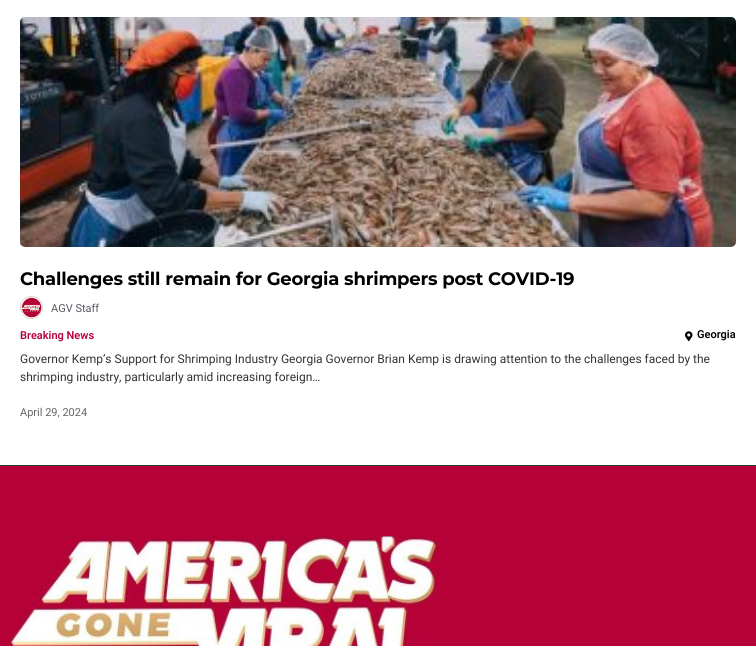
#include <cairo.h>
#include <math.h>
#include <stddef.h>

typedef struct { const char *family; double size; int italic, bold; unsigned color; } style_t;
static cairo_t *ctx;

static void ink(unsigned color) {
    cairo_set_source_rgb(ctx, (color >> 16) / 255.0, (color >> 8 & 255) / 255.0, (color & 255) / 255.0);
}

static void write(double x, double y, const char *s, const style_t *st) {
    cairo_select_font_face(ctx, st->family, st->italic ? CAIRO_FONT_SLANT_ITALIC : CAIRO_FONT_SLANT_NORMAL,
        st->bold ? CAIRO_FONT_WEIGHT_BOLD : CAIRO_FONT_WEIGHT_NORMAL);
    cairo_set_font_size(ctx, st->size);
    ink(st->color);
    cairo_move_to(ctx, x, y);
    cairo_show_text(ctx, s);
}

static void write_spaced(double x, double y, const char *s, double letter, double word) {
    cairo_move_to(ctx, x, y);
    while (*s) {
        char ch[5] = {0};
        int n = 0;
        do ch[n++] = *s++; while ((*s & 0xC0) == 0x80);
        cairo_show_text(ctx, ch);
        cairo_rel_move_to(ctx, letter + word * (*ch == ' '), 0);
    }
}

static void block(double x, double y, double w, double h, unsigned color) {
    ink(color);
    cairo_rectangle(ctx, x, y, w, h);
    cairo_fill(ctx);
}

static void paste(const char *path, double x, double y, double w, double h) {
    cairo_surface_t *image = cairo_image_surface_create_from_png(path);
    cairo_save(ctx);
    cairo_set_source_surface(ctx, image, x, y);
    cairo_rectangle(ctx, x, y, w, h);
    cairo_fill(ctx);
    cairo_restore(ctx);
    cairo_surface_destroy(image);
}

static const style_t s1 = {"Roboto", 11, 0, 0, 0x54595f};
static const style_t s2 = {"Roboto SemiBold", 11, 0, 0, 0xb60138};
static const style_t s3 = {"Roboto SemiBold", 11, 0, 0, 0x000000};
static const style_t s4 = {"Roboto", 12, 0, 0, 0x333333};
static const style_t s5 = {"Roboto", 11, 0, 0, 0x666666};

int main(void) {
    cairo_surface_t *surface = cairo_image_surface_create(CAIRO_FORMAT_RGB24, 756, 646);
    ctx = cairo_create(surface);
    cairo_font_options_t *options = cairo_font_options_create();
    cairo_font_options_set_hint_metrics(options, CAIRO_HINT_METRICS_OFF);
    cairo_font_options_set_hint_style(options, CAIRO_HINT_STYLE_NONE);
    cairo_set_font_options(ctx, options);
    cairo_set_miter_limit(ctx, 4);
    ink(0xffffff);
    cairo_paint(ctx);
    paste("pic1.png", 20, 17, 716, 230);
    cairo_select_font_face(ctx, "Montserrat", CAIRO_FONT_SLANT_NORMAL, CAIRO_FONT_WEIGHT_BOLD);
    cairo_set_font_size(ctx, 18);
    ink(0x000000);
    write_spaced(20, 285, "Challenges still remain for Georgia shrimpers post COVID-19", -0.2, 0);
    cairo_new_path(ctx);
    cairo_arc(ctx, 31.5, 307.5, 11, 0, 2 * M_PI);
    ink(0xd6d6d6);
    cairo_set_line_width(ctx, 1);
    cairo_stroke(ctx);
    paste("pic2.png", 21, 297, 21, 21);
    write(51, 312, "AGV Staff", &s1);
    write(20, 339, "Breaking News", &s2);
    paste("pic3.png", 685, 331, 8, 11);
    write(697, 338, "Georgia", &s3);
    write(20, 363, "Governor Kemp’s Support for Shrimping Industry Georgia Governor Brian Kemp is drawing attention to the challenges faced by the", &s4);
    write(20, 381, "shrimping industry, particularly amid increasing foreign…", &s4);
    write(20, 416, "April 29, 2024", &s5);
    block(0, 466, 756, 180, 0xb60138);
    block(0, 465, 756, 1, 0x333333);
    paste("pic4.png", 10, 536, 427, 110);
    cairo_surface_write_to_png(surface, "screenshot.png");
    cairo_font_options_destroy(options);
    cairo_destroy(ctx);
    cairo_surface_destroy(surface);
    return 0;
}
